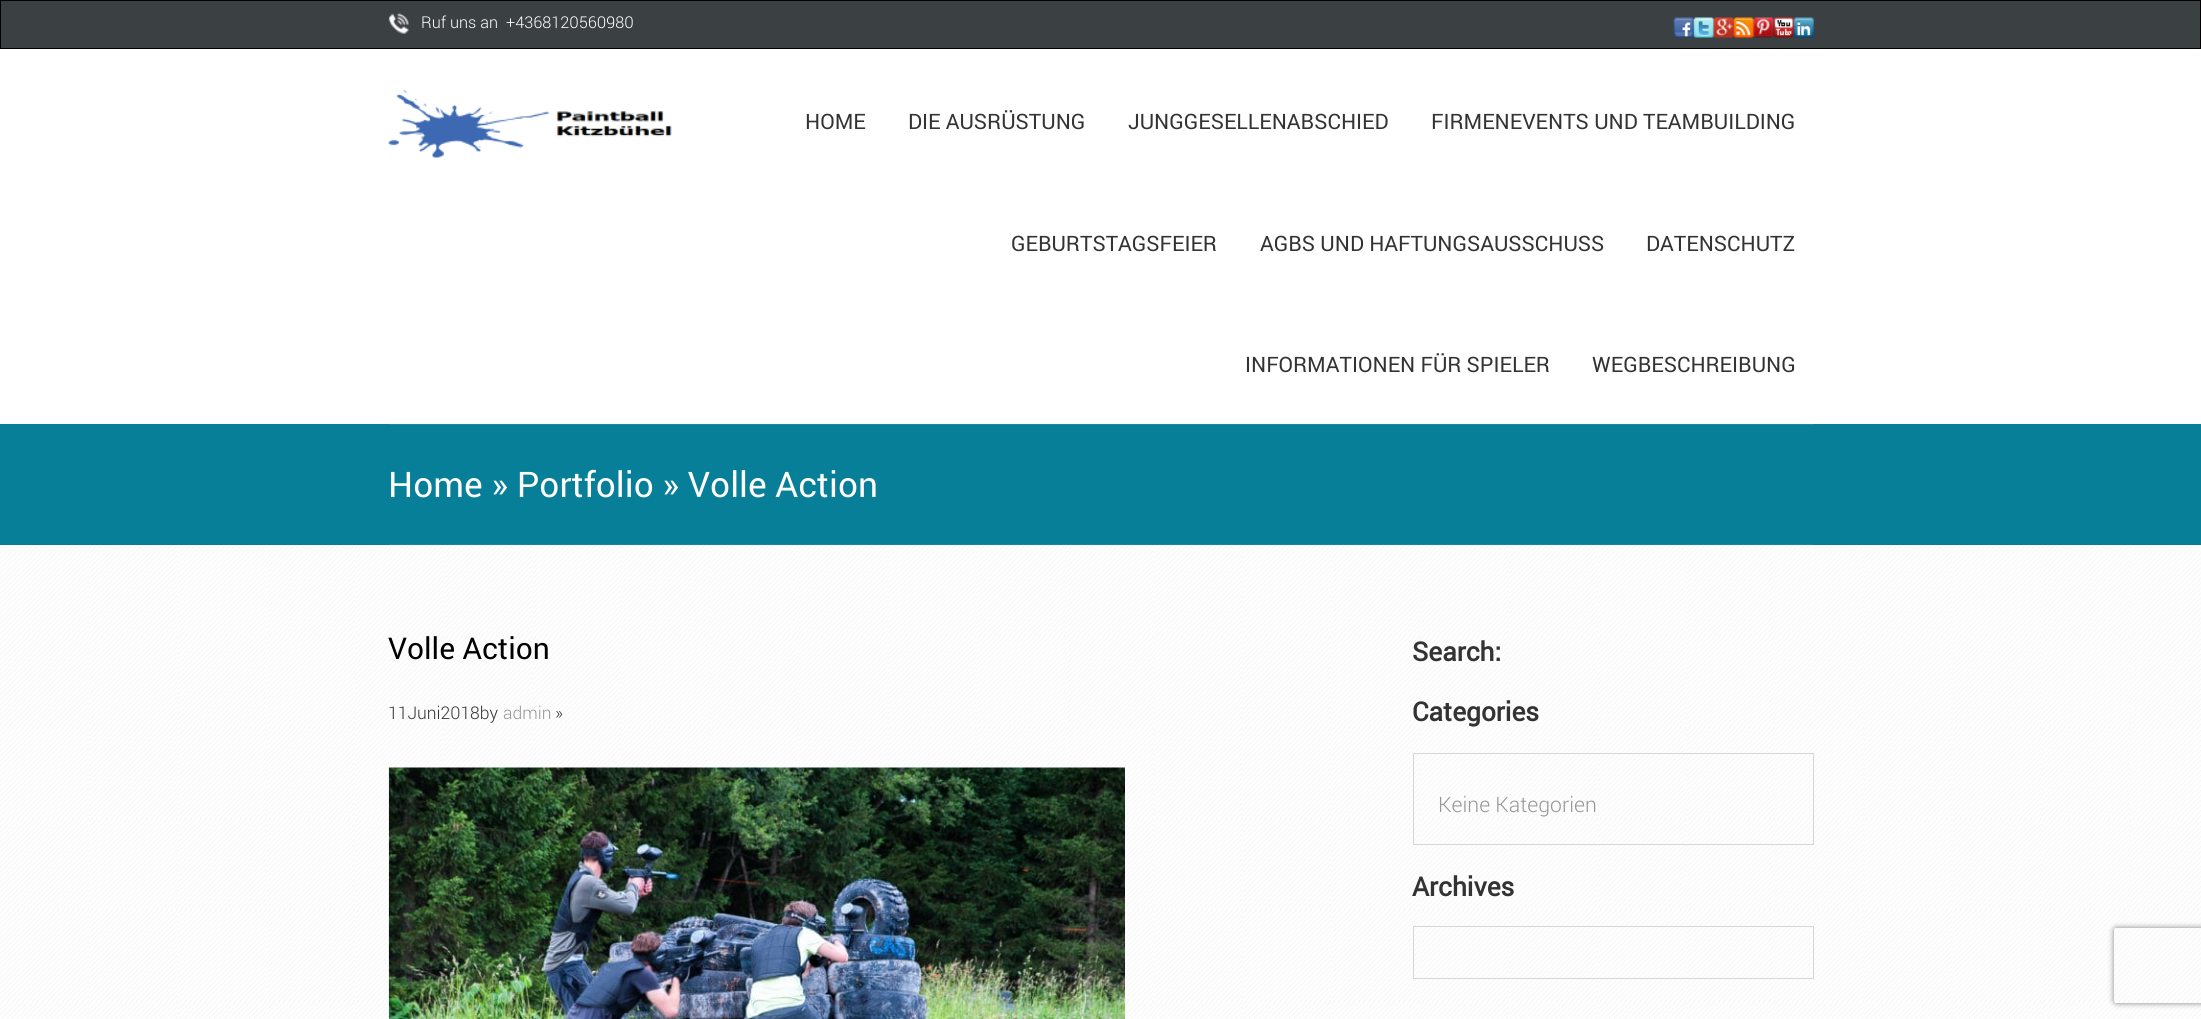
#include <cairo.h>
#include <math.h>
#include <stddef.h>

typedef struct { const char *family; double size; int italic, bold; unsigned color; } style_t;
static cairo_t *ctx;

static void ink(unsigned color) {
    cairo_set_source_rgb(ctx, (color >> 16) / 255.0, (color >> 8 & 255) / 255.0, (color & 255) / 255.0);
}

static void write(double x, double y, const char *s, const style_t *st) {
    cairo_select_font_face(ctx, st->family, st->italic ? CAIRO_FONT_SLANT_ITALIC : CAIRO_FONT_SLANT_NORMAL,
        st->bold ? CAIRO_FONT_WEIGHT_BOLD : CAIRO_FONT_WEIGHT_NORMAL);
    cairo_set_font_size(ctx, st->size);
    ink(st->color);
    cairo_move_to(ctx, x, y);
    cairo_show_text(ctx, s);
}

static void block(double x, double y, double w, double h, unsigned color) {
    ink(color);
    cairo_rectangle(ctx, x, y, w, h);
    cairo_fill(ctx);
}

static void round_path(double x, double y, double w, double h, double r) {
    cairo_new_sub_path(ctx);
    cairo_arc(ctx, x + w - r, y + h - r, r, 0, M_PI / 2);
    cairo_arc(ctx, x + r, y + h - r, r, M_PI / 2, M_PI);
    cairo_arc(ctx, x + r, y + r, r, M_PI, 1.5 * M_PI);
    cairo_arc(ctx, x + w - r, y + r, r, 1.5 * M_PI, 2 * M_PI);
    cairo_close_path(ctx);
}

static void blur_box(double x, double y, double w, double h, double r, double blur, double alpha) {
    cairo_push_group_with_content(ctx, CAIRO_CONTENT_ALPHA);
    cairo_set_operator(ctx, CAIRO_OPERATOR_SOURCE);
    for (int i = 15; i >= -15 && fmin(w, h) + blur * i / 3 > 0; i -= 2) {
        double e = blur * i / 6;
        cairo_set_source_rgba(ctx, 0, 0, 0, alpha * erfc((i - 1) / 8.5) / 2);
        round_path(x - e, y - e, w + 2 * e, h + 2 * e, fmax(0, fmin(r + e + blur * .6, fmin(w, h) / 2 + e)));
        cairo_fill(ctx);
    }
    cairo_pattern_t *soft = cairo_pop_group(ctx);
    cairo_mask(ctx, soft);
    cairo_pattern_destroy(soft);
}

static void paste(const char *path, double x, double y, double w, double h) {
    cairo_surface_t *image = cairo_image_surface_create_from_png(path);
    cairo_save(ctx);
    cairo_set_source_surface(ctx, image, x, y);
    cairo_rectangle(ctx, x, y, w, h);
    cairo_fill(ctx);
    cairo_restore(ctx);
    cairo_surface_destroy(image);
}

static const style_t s1 = {"Roboto Light", 16.25, 0, 0, 0xffffff};
static const style_t s2 = {"Roboto", 21.25, 0, 0, 0x333333};
static const style_t s3 = {"Roboto", 35.25, 0, 0, 0xffffff};
static const style_t s4 = {"Roboto", 30, 0, 0, 0x000000};
static const style_t s5 = {"Roboto Light", 17.5, 0, 0, 0x333333};
static const style_t s6 = {"Roboto Light", 17.5, 0, 0, 0x989696};
static const style_t s7 = {"Roboto", 26.25, 0, 1, 0x333333};
static const style_t s8 = {"Roboto Light", 21.25, 0, 0, 0x989696};

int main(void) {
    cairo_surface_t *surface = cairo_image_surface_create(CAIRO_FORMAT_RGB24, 2201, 1019);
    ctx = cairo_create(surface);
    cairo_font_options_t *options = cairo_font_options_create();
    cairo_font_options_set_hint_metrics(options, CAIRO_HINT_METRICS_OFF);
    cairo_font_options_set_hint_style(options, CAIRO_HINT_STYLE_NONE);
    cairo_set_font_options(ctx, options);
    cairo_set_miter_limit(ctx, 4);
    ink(0xffffff);
    cairo_paint(ctx);
    ink(0x3b4043);
    cairo_rectangle(ctx, 0.5, 0.5, 2200, 48);
    cairo_fill_preserve(ctx);
    ink(0x000000);
    cairo_set_line_width(ctx, 1);
    cairo_stroke(ctx);
    paste("pic1.png", 388, 13, 21, 21);
    write(421, 28, "Ruf uns an  +4368120560980", &s1);
    paste("pic2.png", 1673, 17, 21, 21);
    paste("pic3.png", 1693, 17, 21, 21);
    paste("pic4.png", 1713, 17, 21, 21);
    paste("pic5.png", 1733, 17, 21, 21);
    paste("pic6.png", 1753, 17, 21, 21);
    paste("pic7.png", 1773, 17, 21, 21);
    paste("pic8.png", 1793, 17, 21, 21);
    paste("pic9.png", 388, 90, 284, 68);
    write(805, 129, "HOME", &s2);
    write(908, 129, "DIE AUSRÜSTUNG", &s2);
    write(1128, 129, "JUNGGESELLENABSCHIED", &s2);
    write(1431, 129, "FIRMENEVENTS UND TEAMBUILDING", &s2);
    write(1011, 251, "GEBURTSTAGSFEIER", &s2);
    write(1260, 251, "AGBS UND HAFTUNGSAUSSCHUSS", &s2);
    write(1646, 251, "DATENSCHUTZ", &s2);
    write(1245, 372, "INFORMATIONEN FÜR SPIELER", &s2);
    write(1592, 372, "WEGBESCHREIBUNG", &s2);
    block(0, 424, 2201, 121, 0x087f99);
    block(389, 424, 1425, 1, 0x18879f);
    block(389, 544, 1425, 1, 0x18879f);
    write(388, 497, "Home » Portfolio » Volle Action", &s3);
    paste("pic10.png", 0, 545, 2201, 474);
    write(388, 659, "Volle Action", &s4);
    write(388, 719, "11Juni2018by", &s5);
    write(503, 719, "admin", &s6);
    write(555, 719, "»", &s5);
    paste("pic11.png", 388, 767, 737, 252);
    write(1412, 661, "Search:", &s7);
    write(1412, 721, "Categories", &s7);
    cairo_rectangle(ctx, 1413.5, 753.5, 400, 91);
    ink(0xd5d6d7);
    cairo_stroke(ctx);
    write(1438, 812, "Keine Kategorien", &s8);
    write(1412, 896, "Archives", &s7);
    cairo_rectangle(ctx, 1413.5, 926.5, 400, 52);
    ink(0xd5d6d7);
    cairo_stroke(ctx);
    cairo_save(ctx);
    cairo_set_fill_rule(ctx, CAIRO_FILL_RULE_EVEN_ODD);
    cairo_new_path(ctx);
    cairo_move_to(ctx, 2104, 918);
    cairo_line_to(ctx, 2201, 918);
    cairo_line_to(ctx, 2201, 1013);
    cairo_line_to(ctx, 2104, 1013);
    cairo_close_path(ctx);
    cairo_move_to(ctx, 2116.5, 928);
    cairo_line_to(ctx, 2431.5, 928);
    cairo_curve_to(ctx, 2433, 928, 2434, 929, 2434, 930.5);
    cairo_line_to(ctx, 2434, 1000.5);
    cairo_curve_to(ctx, 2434, 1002, 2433, 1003, 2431.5, 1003);
    cairo_line_to(ctx, 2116.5, 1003);
    cairo_curve_to(ctx, 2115, 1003, 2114, 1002, 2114, 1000.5);
    cairo_line_to(ctx, 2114, 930.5);
    cairo_curve_to(ctx, 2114, 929, 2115, 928, 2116.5, 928);
    cairo_close_path(ctx);
    cairo_clip(ctx);
    ink(0x808080);
    blur_box(2114, 928, 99, 75, 2.5, 3, 1);
    cairo_restore(ctx);
    cairo_surface_write_to_png(surface, "screenshot.png");
    cairo_font_options_destroy(options);
    cairo_destroy(ctx);
    cairo_surface_destroy(surface);
    return 0;
}
